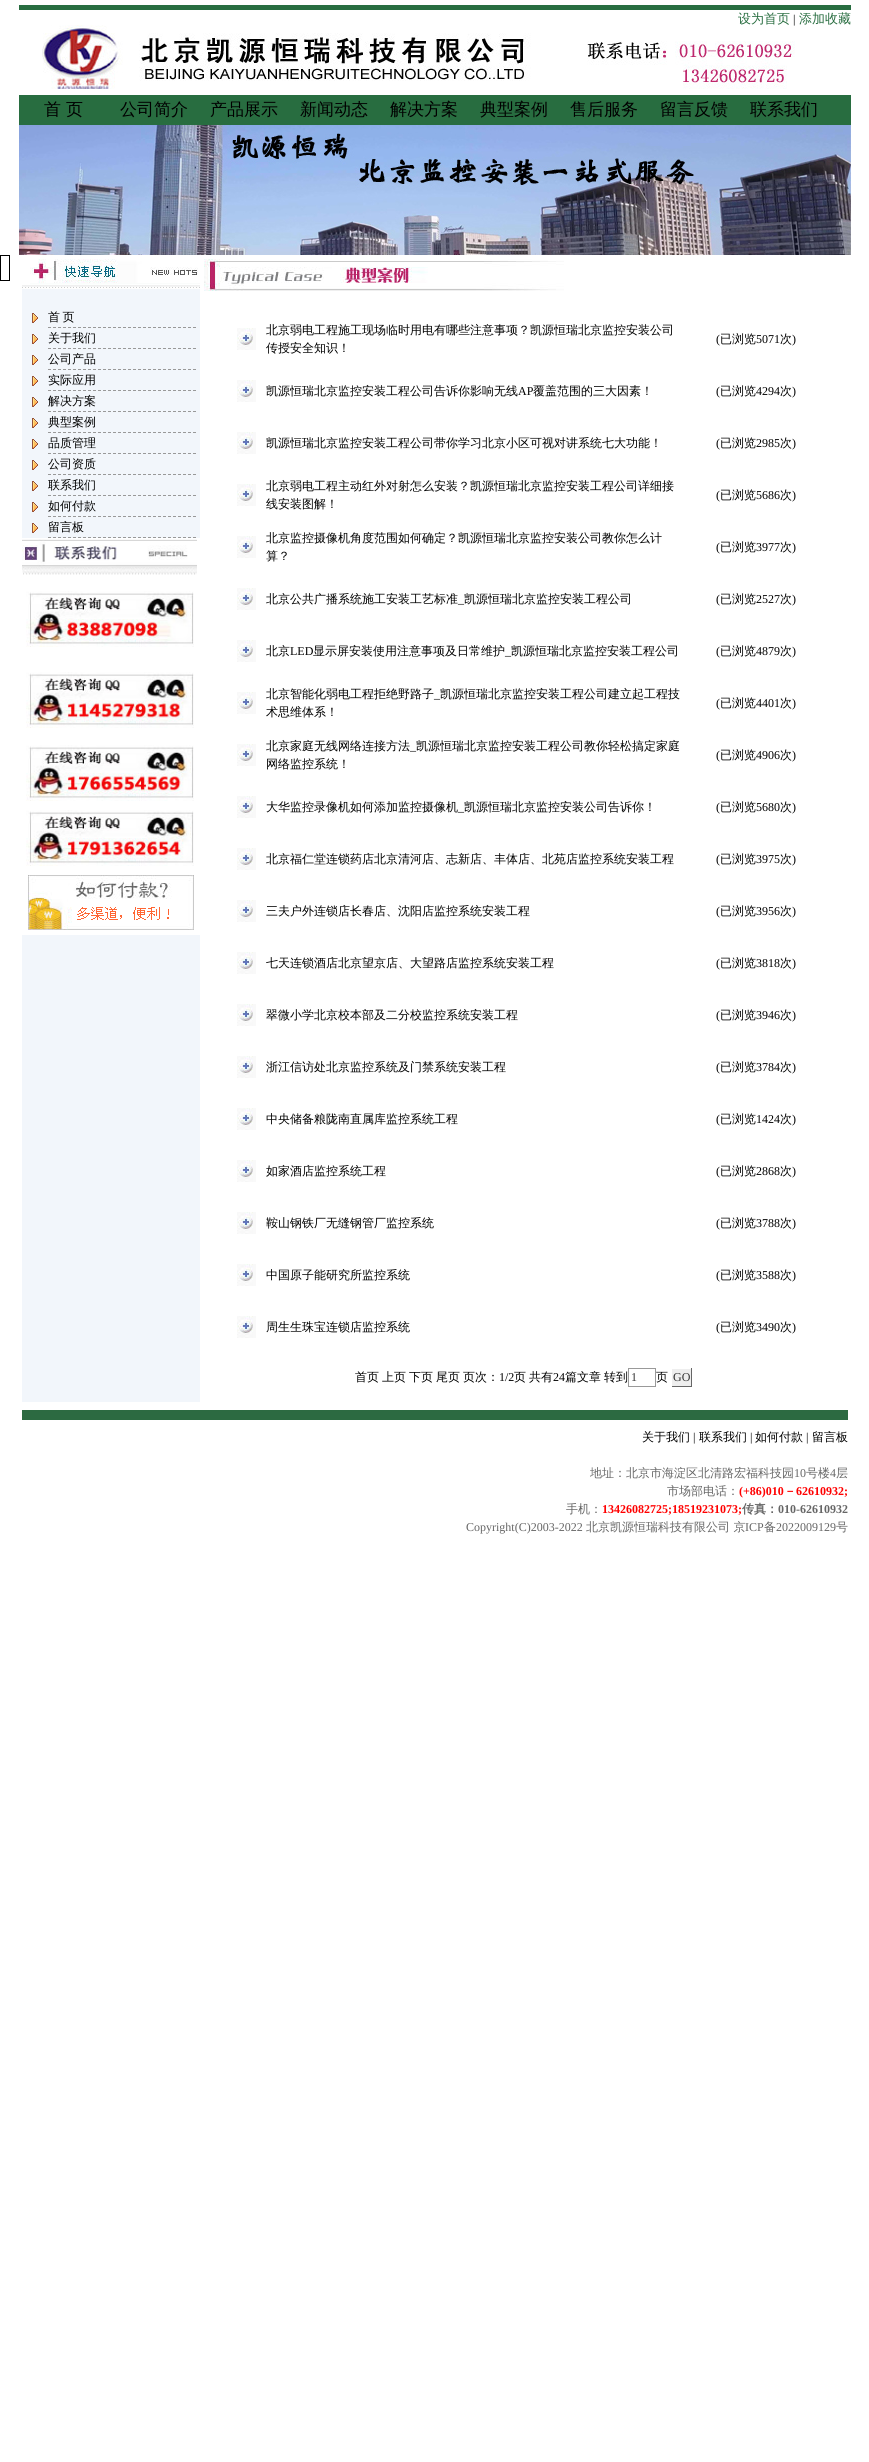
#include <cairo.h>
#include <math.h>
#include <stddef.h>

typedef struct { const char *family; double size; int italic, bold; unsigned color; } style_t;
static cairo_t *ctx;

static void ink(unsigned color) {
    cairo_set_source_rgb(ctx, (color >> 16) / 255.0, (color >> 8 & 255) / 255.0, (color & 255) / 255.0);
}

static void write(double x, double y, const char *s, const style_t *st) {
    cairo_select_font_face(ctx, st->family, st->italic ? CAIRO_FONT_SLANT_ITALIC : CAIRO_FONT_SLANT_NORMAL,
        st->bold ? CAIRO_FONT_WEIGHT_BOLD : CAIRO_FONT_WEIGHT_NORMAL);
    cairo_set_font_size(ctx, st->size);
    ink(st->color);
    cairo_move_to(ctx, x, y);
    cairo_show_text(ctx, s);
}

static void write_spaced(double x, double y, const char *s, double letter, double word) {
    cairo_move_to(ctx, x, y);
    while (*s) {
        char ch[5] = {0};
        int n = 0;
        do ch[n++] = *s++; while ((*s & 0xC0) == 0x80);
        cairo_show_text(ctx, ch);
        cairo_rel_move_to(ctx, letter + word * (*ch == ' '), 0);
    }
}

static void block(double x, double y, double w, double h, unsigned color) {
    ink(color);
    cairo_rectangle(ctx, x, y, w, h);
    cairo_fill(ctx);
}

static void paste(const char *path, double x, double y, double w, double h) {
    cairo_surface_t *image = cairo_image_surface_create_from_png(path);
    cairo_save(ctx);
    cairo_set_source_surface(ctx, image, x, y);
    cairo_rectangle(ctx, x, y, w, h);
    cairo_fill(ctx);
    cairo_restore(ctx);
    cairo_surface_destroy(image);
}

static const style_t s1 = {"WenQuanYi Zen Hei Medium", 13, 0, 0, 0x286d40};
static const style_t s2 = {"Liberation Serif", 12, 0, 0, 0x000000};
static const style_t s3 = {"WenQuanYi Zen Hei Medium", 17, 0, 0, 0x000000};
static const style_t s4 = {"WenQuanYi Zen Hei Medium", 12, 0, 0, 0x000000};
static const style_t s5 = {"Liberation Serif", 12, 0, 0, 0x333333};
static const style_t s6 = {"WenQuanYi Zen Hei Medium", 12, 0, 0, 0x666666};
static const style_t s7 = {"Liberation Serif", 12, 0, 0, 0x666666};
static const style_t s8 = {"Liberation Serif", 12, 0, 1, 0xff0000};
static const style_t s9 = {"WenQuanYi Zen Hei", 12, 0, 1, 0xff0000};
static const style_t s10 = {"WenQuanYi Zen Hei", 12, 0, 1, 0x666666};
static const style_t s11 = {"Liberation Serif", 12, 0, 1, 0x666666};

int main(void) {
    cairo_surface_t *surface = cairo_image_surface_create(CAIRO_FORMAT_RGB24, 869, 2462);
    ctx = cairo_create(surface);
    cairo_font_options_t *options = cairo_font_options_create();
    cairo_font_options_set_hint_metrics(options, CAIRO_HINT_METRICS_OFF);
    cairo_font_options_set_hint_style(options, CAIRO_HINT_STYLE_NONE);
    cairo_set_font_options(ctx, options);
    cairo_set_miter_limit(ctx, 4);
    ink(0xffffff);
    cairo_paint(ctx);
    block(19, 5, 832, 5, 0x286d40);
    write(738, 23, "设为首页", &s1);
    paste("pic1.png", 42, 25, 753, 64);
    write(793, 23, "|", &s2);
    write(799, 23, "添加收藏", &s1);
    block(19, 95, 832, 30, 0x286d40);
    write(44, 115, "首", &s3);
    write(66, 115, "页", &s3);
    write(120, 115, "公司简介", &s3);
    write(210, 115, "产品展示", &s3);
    write(300, 115, "新闻动态", &s3);
    write(390, 115, "解决方案", &s3);
    write(480, 115, "典型案例", &s3);
    write(570, 115, "售后服务", &s3);
    write(660, 115, "留言反馈", &s3);
    write(750, 115, "联系我们", &s3);
    paste("pic2.png", 19, 125, 832, 130);
    cairo_rectangle(ctx, 0.5, 255.5, 9, 25);
    cairo_set_line_width(ctx, 1);
    cairo_stroke(ctx);
    block(22, 935, 178, 467, 0xf2f6fb);
    paste("pic3.png", 22, 255, 178, 34);
    paste("pic4.png", 22, 259, 178, 26);
    block(22, 289, 178, 249, 0xf2f6fb);
    paste("pic5.png", 32, 313, 6, 10);
    cairo_new_path(ctx);
    cairo_move_to(ctx, 48, 327.5);
    cairo_line_to(ctx, 196, 327.5);
    ink(0x999999);
    cairo_set_dash(ctx, (double[]){3, 2}, 2, 0);
    cairo_stroke(ctx);
    cairo_set_font_size(ctx, 12);
    ink(0x000000);
    write_spaced(48, 321, "首 页", 0, -1);
    paste("pic5.png", 32, 334, 6, 10);
    cairo_new_path(ctx);
    cairo_move_to(ctx, 48, 348.5);
    cairo_line_to(ctx, 196, 348.5);
    ink(0x999999);
    cairo_stroke(ctx);
    write(48, 342, "关于我们", &s4);
    paste("pic5.png", 32, 355, 6, 10);
    cairo_new_path(ctx);
    cairo_move_to(ctx, 48, 369.5);
    cairo_line_to(ctx, 196, 369.5);
    ink(0x999999);
    cairo_stroke(ctx);
    write(48, 363, "公司产品", &s4);
    paste("pic5.png", 32, 376, 6, 10);
    cairo_new_path(ctx);
    cairo_move_to(ctx, 48, 390.5);
    cairo_line_to(ctx, 196, 390.5);
    ink(0x999999);
    cairo_stroke(ctx);
    write(48, 384, "实际应用", &s4);
    paste("pic5.png", 32, 397, 6, 10);
    cairo_new_path(ctx);
    cairo_move_to(ctx, 48, 411.5);
    cairo_line_to(ctx, 196, 411.5);
    ink(0x999999);
    cairo_stroke(ctx);
    write(48, 405, "解决方案", &s4);
    paste("pic5.png", 32, 418, 6, 10);
    cairo_new_path(ctx);
    cairo_move_to(ctx, 48, 432.5);
    cairo_line_to(ctx, 196, 432.5);
    ink(0x999999);
    cairo_stroke(ctx);
    write(48, 426, "典型案例", &s4);
    paste("pic5.png", 32, 439, 6, 10);
    cairo_new_path(ctx);
    cairo_move_to(ctx, 48, 453.5);
    cairo_line_to(ctx, 196, 453.5);
    ink(0x999999);
    cairo_stroke(ctx);
    write(48, 447, "品质管理", &s4);
    paste("pic5.png", 32, 460, 6, 10);
    cairo_new_path(ctx);
    cairo_move_to(ctx, 48, 474.5);
    cairo_line_to(ctx, 196, 474.5);
    ink(0x999999);
    cairo_stroke(ctx);
    write(48, 468, "公司资质", &s4);
    paste("pic5.png", 32, 481, 6, 10);
    cairo_new_path(ctx);
    cairo_move_to(ctx, 48, 495.5);
    cairo_line_to(ctx, 196, 495.5);
    ink(0x999999);
    cairo_stroke(ctx);
    write(48, 489, "联系我们", &s4);
    paste("pic5.png", 32, 502, 6, 10);
    cairo_new_path(ctx);
    cairo_move_to(ctx, 48, 516.5);
    cairo_line_to(ctx, 196, 516.5);
    ink(0x999999);
    cairo_stroke(ctx);
    write(48, 510, "如何付款", &s4);
    paste("pic5.png", 32, 523, 6, 10);
    cairo_new_path(ctx);
    cairo_move_to(ctx, 48, 537.5);
    cairo_line_to(ctx, 196, 537.5);
    ink(0x999999);
    cairo_stroke(ctx);
    write(48, 531, "留言板", &s4);
    paste("pic6.png", 22, 539, 175, 36);
    paste("pic7.png", 26, 591, 168, 56);
    paste("pic8.png", 26, 672, 168, 56);
    paste("pic9.png", 26, 745, 168, 56);
    paste("pic10.png", 26, 810, 168, 56);
    paste("pic11.png", 28, 875, 166, 55);
    paste("pic12.png", 204, 259, 360, 32);
    paste("pic13.png", 237, 328, 19, 22);
    write(266, 334, "北京弱电工程施工现场临时用电有哪些注意事项？凯源恒瑞北京监控安装公司", &s4);
    write(266, 352, "传授安全知识！", &s4);
    write(716, 343, "(", &s2);
    write(720, 343, "已浏览", &s4);
    write(756, 343, "5071", &s2);
    write(780, 343, "次", &s4);
    write(792, 343, ")", &s2);
    paste("pic13.png", 237, 380, 19, 22);
    write(266, 395, "凯源恒瑞北京监控安装工程公司告诉你影响无线", &s4);
    write(518, 395, "AP", &s2);
    write(533, 395, "覆盖范围的三大因素！", &s4);
    write(716, 395, "(", &s2);
    write(720, 395, "已浏览", &s4);
    write(756, 395, "4294", &s2);
    write(780, 395, "次", &s4);
    write(792, 395, ")", &s2);
    paste("pic13.png", 237, 432, 19, 22);
    write(266, 447, "凯源恒瑞北京监控安装工程公司带你学习北京小区可视对讲系统七大功能！", &s4);
    write(716, 447, "(", &s2);
    write(720, 447, "已浏览", &s4);
    write(756, 447, "2985", &s2);
    write(780, 447, "次", &s4);
    write(792, 447, ")", &s2);
    paste("pic13.png", 237, 484, 19, 22);
    write(266, 490, "北京弱电工程主动红外对射怎么安装？凯源恒瑞北京监控安装工程公司详细接", &s4);
    write(266, 508, "线安装图解！", &s4);
    write(716, 499, "(", &s2);
    write(720, 499, "已浏览", &s4);
    write(756, 499, "5686", &s2);
    write(780, 499, "次", &s4);
    write(792, 499, ")", &s2);
    paste("pic13.png", 237, 536, 19, 22);
    write(266, 542, "北京监控摄像机角度范围如何确定？凯源恒瑞北京监控安装公司教你怎么计", &s4);
    write(266, 560, "算？", &s4);
    write(716, 551, "(", &s2);
    write(720, 551, "已浏览", &s4);
    write(756, 551, "3977", &s2);
    write(780, 551, "次", &s4);
    write(792, 551, ")", &s2);
    paste("pic13.png", 237, 588, 19, 22);
    write(266, 603, "北京公共广播系统施工安装工艺标准", &s4);
    write(458, 603, "_", &s2);
    write(464, 603, "凯源恒瑞北京监控安装工程公司", &s4);
    write(716, 603, "(", &s2);
    write(720, 603, "已浏览", &s4);
    write(756, 603, "2527", &s2);
    write(780, 603, "次", &s4);
    write(792, 603, ")", &s2);
    paste("pic13.png", 237, 640, 19, 22);
    write(266, 655, "北京", &s4);
    write(290, 655, "LED", &s2);
    write(313, 655, "显示屏安装使用注意事项及日常维护", &s4);
    write(505, 655, "_", &s2);
    write(511, 655, "凯源恒瑞北京监控安装工程公司", &s4);
    write(716, 655, "(", &s2);
    write(720, 655, "已浏览", &s4);
    write(756, 655, "4879", &s2);
    write(780, 655, "次", &s4);
    write(792, 655, ")", &s2);
    paste("pic13.png", 237, 692, 19, 22);
    write(266, 698, "北京智能化弱电工程拒绝野路子", &s4);
    write(434, 698, "_", &s2);
    write(440, 698, "凯源恒瑞北京监控安装工程公司建立起工程技", &s4);
    write(266, 716, "术思维体系！", &s4);
    write(716, 707, "(", &s2);
    write(720, 707, "已浏览", &s4);
    write(756, 707, "4401", &s2);
    write(780, 707, "次", &s4);
    write(792, 707, ")", &s2);
    paste("pic13.png", 237, 744, 19, 22);
    write(266, 750, "北京家庭无线网络连接方法", &s4);
    write(410, 750, "_", &s2);
    write(416, 750, "凯源恒瑞北京监控安装工程公司教你轻松搞定家庭", &s4);
    write(266, 768, "网络监控系统！", &s4);
    write(716, 759, "(", &s2);
    write(720, 759, "已浏览", &s4);
    write(756, 759, "4906", &s2);
    write(780, 759, "次", &s4);
    write(792, 759, ")", &s2);
    paste("pic13.png", 237, 796, 19, 22);
    write(266, 811, "大华监控录像机如何添加监控摄像机", &s4);
    write(458, 811, "_", &s2);
    write(464, 811, "凯源恒瑞北京监控安装公司告诉你！", &s4);
    write(716, 811, "(", &s2);
    write(720, 811, "已浏览", &s4);
    write(756, 811, "5680", &s2);
    write(780, 811, "次", &s4);
    write(792, 811, ")", &s2);
    paste("pic13.png", 237, 848, 19, 22);
    write(266, 863, "北京福仁堂连锁药店北京清河店、志新店、丰体店、北苑店监控系统安装工程", &s4);
    write(716, 863, "(", &s2);
    write(720, 863, "已浏览", &s4);
    write(756, 863, "3975", &s2);
    write(780, 863, "次", &s4);
    write(792, 863, ")", &s2);
    paste("pic13.png", 237, 900, 19, 22);
    write(266, 915, "三夫户外连锁店长春店、沈阳店监控系统安装工程", &s4);
    write(716, 915, "(", &s2);
    write(720, 915, "已浏览", &s4);
    write(756, 915, "3956", &s2);
    write(780, 915, "次", &s4);
    write(792, 915, ")", &s2);
    paste("pic13.png", 237, 952, 19, 22);
    write(266, 967, "七天连锁酒店北京望京店、大望路店监控系统安装工程", &s4);
    write(716, 967, "(", &s2);
    write(720, 967, "已浏览", &s4);
    write(756, 967, "3818", &s2);
    write(780, 967, "次", &s4);
    write(792, 967, ")", &s2);
    paste("pic13.png", 237, 1004, 19, 22);
    write(266, 1019, "翠微小学北京校本部及二分校监控系统安装工程", &s4);
    write(716, 1019, "(", &s2);
    write(720, 1019, "已浏览", &s4);
    write(756, 1019, "3946", &s2);
    write(780, 1019, "次", &s4);
    write(792, 1019, ")", &s2);
    paste("pic13.png", 237, 1056, 19, 22);
    write(266, 1071, "浙江信访处北京监控系统及门禁系统安装工程", &s4);
    write(716, 1071, "(", &s2);
    write(720, 1071, "已浏览", &s4);
    write(756, 1071, "3784", &s2);
    write(780, 1071, "次", &s4);
    write(792, 1071, ")", &s2);
    paste("pic13.png", 237, 1108, 19, 22);
    write(266, 1123, "中央储备粮陇南直属库监控系统工程", &s4);
    write(716, 1123, "(", &s2);
    write(720, 1123, "已浏览", &s4);
    write(756, 1123, "1424", &s2);
    write(780, 1123, "次", &s4);
    write(792, 1123, ")", &s2);
    paste("pic13.png", 237, 1160, 19, 22);
    write(266, 1175, "如家酒店监控系统工程", &s4);
    write(716, 1175, "(", &s2);
    write(720, 1175, "已浏览", &s4);
    write(756, 1175, "2868", &s2);
    write(780, 1175, "次", &s4);
    write(792, 1175, ")", &s2);
    paste("pic13.png", 237, 1212, 19, 22);
    write(266, 1227, "鞍山钢铁厂无缝钢管厂监控系统", &s4);
    write(716, 1227, "(", &s2);
    write(720, 1227, "已浏览", &s4);
    write(756, 1227, "3788", &s2);
    write(780, 1227, "次", &s4);
    write(792, 1227, ")", &s2);
    paste("pic13.png", 237, 1264, 19, 22);
    write(266, 1279, "中国原子能研究所监控系统", &s4);
    write(716, 1279, "(", &s2);
    write(720, 1279, "已浏览", &s4);
    write(756, 1279, "3588", &s2);
    write(780, 1279, "次", &s4);
    write(792, 1279, ")", &s2);
    paste("pic13.png", 237, 1316, 19, 22);
    write(266, 1331, "周生生珠宝连锁店监控系统", &s4);
    write(716, 1331, "(", &s2);
    write(720, 1331, "已浏览", &s4);
    write(756, 1331, "3490", &s2);
    write(780, 1331, "次", &s4);
    write(792, 1331, ")", &s2);
    write(355, 1381, "首页", &s4);
    write(382, 1381, "上页", &s4);
    write(409, 1381, "下页", &s4);
    write(436, 1381, "尾页", &s4);
    write(463, 1381, "页次：", &s4);
    write(499, 1381, "1/2", &s2);
    write(514, 1381, "页", &s4);
    write(529, 1381, "共有", &s4);
    write(553, 1381, "24", &s2);
    write(565, 1381, "篇文章", &s4);
    write(604, 1381, "转到", &s4);
    cairo_rectangle(ctx, 628.5, 1368.5, 27, 18);
    ink(0x999999);
    cairo_set_dash(ctx, NULL, 0, 0);
    cairo_stroke(ctx);
    write(631, 1381, "1", &s5);
    write(656, 1381, "页", &s4);
    block(672, 1369, 19, 17, 0xeeeeee);
    block(691, 1368, 1, 19, 0x666666);
    block(671, 1386, 21, 1, 0x666666);
    block(671, 1386, 1, 1, 0xffffff);
    write(673, 1381, "GO", &s5);
    block(22, 1410, 826, 10, 0x2c6a41);
    write(642, 1441, "关于我们", &s4);
    write(693, 1441, "|", &s2);
    write(699, 1441, "联系我们", &s4);
    write(750, 1441, "|", &s2);
    write(755, 1441, "如何付款", &s4);
    write(806, 1441, "|", &s2);
    write(812, 1441, "留言板", &s4);
    write(590, 1477, "地址：北京市海淀区北清路宏福科技园", &s6);
    write(794, 1477, "10", &s7);
    write(806, 1477, "号楼", &s6);
    write(830, 1477, "4", &s7);
    write(836, 1477, "层", &s6);
    write(667, 1495, "市场部电话：", &s6);
    write(739, 1495, "(+86)010", &s8);
    write(784, 1495, "－", &s9);
    write(796, 1495, "62610932;", &s8);
    write(566, 1513, "手机：", &s6);
    write(602, 1513, "13426082725;18519231073;", &s8);
    write(742, 1513, "传真：", &s10);
    write(778, 1513, "010-62610932", &s11);
    write(466, 1531, "Copyright(C)2003-2022", &s7);
    write(586, 1531, "北京凯源恒瑞科技有限公司 京", &s6);
    write(745, 1531, "ICP", &s7);
    write(764, 1531, "备", &s6);
    write(776, 1531, "2022009129", &s7);
    write(836, 1531, "号", &s6);
    cairo_surface_write_to_png(surface, "screenshot.png");
    cairo_font_options_destroy(options);
    cairo_destroy(ctx);
    cairo_surface_destroy(surface);
    return 0;
}
